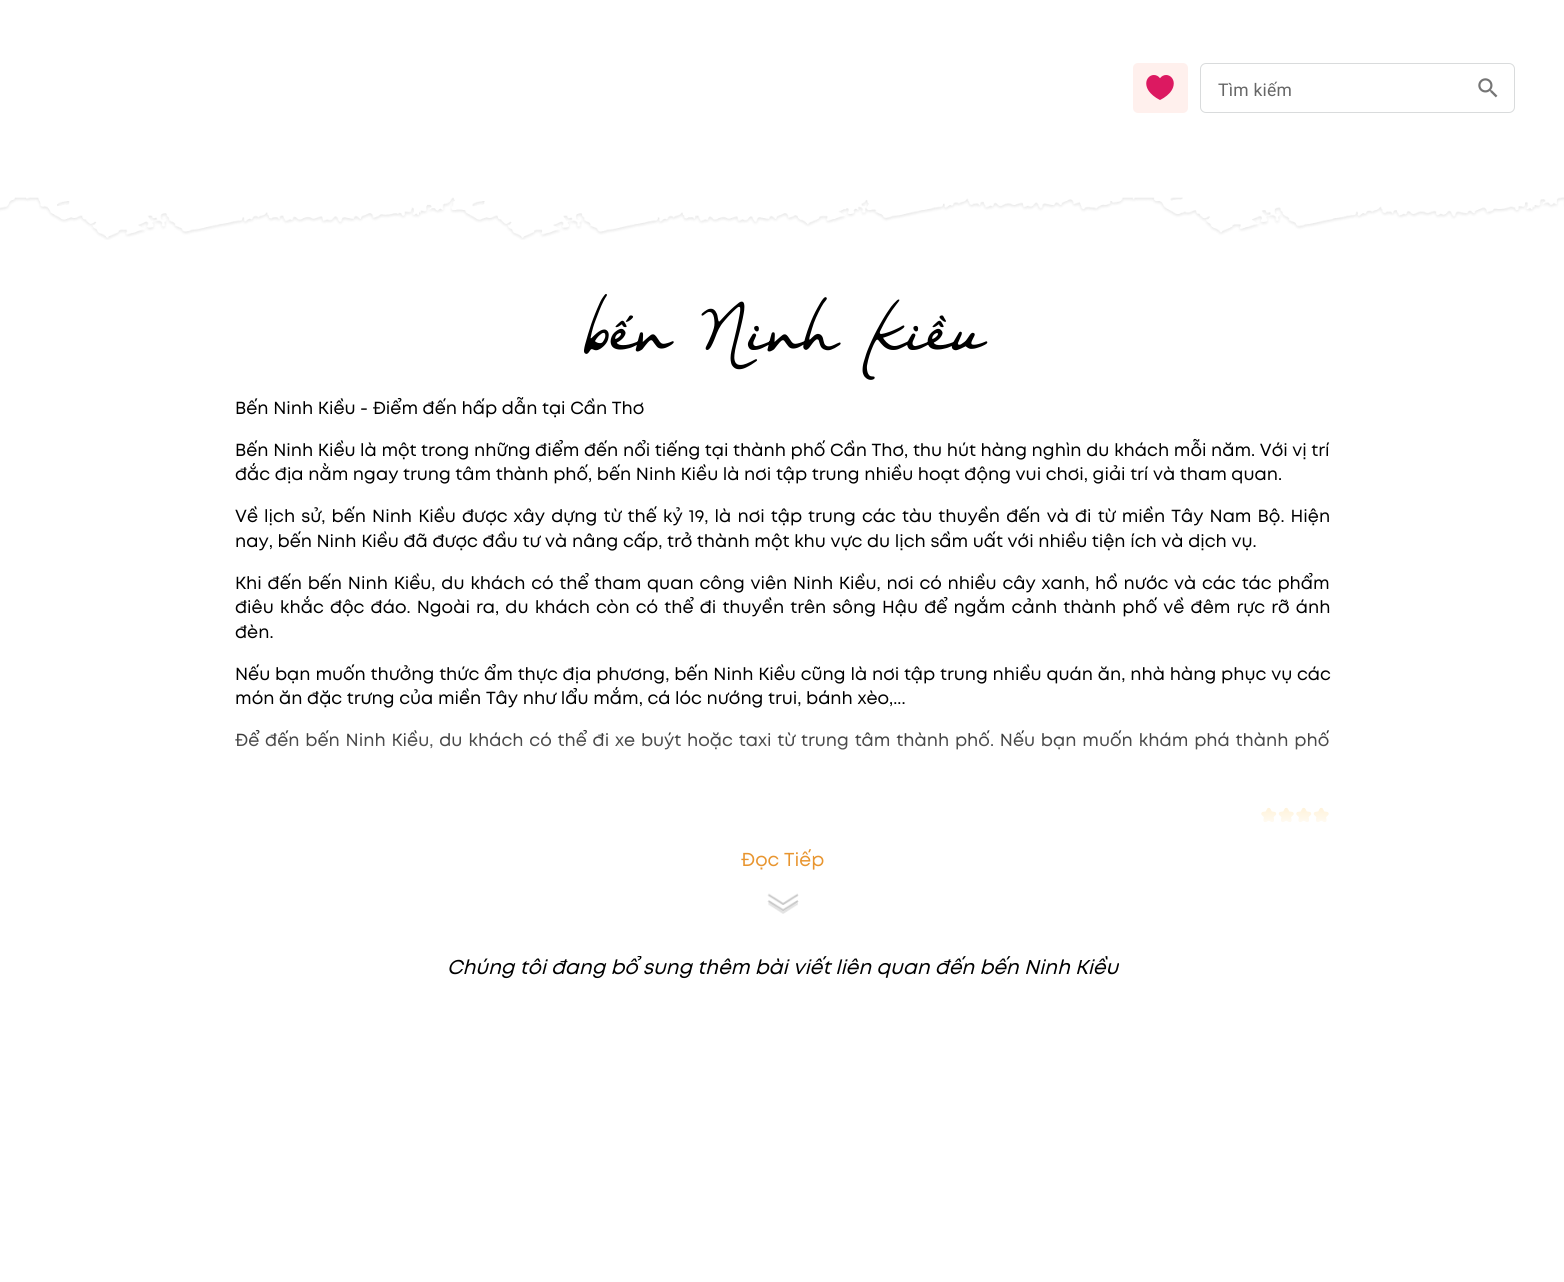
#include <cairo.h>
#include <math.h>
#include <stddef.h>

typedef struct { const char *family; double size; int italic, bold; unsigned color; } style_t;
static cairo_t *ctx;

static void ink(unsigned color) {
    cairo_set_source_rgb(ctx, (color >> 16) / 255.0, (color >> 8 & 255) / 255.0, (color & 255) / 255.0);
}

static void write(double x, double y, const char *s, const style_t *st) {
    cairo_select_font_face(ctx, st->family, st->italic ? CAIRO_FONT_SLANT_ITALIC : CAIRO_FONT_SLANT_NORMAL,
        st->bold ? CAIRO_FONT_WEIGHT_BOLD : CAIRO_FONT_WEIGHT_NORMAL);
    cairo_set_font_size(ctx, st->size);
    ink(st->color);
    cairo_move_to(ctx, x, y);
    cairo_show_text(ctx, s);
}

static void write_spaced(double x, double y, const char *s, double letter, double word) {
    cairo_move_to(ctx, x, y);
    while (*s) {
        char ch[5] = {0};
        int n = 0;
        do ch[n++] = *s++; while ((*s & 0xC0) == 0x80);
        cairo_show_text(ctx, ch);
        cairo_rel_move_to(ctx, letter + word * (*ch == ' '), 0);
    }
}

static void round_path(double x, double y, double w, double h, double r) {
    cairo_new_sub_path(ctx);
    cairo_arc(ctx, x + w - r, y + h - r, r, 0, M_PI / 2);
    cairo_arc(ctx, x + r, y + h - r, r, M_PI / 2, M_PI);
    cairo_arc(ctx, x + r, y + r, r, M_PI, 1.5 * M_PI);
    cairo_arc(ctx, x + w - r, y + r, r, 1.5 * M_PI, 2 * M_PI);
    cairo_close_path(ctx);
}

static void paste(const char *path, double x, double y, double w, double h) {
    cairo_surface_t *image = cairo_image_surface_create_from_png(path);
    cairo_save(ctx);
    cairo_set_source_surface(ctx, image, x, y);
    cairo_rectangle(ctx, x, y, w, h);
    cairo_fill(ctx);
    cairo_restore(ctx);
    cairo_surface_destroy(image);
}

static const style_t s1 = {"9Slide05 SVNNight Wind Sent", 62.5, 0, 0, 0x000000};
static const style_t s2 = {"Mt", 17.5, 0, 0, 0x000000};
static const style_t s3 = {"Mt", 20, 1, 0, 0x000000};
static const style_t s4 = {"Mt", 18.75, 0, 0, 0xe8952f};

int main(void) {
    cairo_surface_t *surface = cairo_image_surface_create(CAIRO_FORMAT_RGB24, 1564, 1282);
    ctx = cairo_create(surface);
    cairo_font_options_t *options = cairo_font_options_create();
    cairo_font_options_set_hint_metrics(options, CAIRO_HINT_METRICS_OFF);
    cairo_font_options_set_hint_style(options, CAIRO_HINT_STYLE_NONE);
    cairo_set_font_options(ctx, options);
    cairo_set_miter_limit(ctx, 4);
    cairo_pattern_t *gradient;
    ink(0xffffff);
    cairo_paint(ctx);
    ink(0xfff0ed);
    round_path(1133, 63, 55, 50, 5);
    cairo_fill(ctx);
    paste("pic1.png", 1146, 75, 28, 25);
    round_path(1200.5, 63.5, 314, 49, 5.5);
    ink(0xd9dbdc);
    cairo_set_line_width(ctx, 1);
    cairo_stroke(ctx);
    cairo_select_font_face(ctx, "Roboto", CAIRO_FONT_SLANT_NORMAL, CAIRO_FONT_WEIGHT_NORMAL);
    cairo_set_font_size(ctx, 17.5);
    ink(0x666666);
    write_spaced(1218, 96, "Tìm kiếm", 0.25, 0);
    paste("pic2.png", 1478, 78, 20, 20);
    paste("pic3.png", 0, 197, 1564, 43);
    write(583, 350, "bến Ninh Kiều", &s1);
    write(235, 414, "Bến Ninh Kiều - Điểm đến hấp dẫn tại Cần Thơ", &s2);
    write(235, 456, "Bến Ninh Kiều là một trong những điểm đến nổi tiếng tại thành phố Cần Thơ, thu hút hàng nghìn du khách mỗi năm. Với vị trí", &s2);
    write(235, 480, "đắc địa nằm ngay trung tâm thành phố, bến Ninh Kiều là nơi tập trung nhiều hoạt động vui chơi, giải trí và tham quan.", &s2);
    write_spaced(235, 522, "Về lịch sử, bến Ninh Kiều được xây dựng từ thế kỷ 19, là nơi tập trung các tàu thuyền đến và đi từ miền Tây Nam Bộ. Hiện", 0, 1.5);
    write(235, 547, "nay, bến Ninh Kiều đã được đầu tư và nâng cấp, trở thành một khu vực du lịch sầm uất với nhiều tiện ích và dịch vụ.", &s2);
    write_spaced(235, 589, "Khi đến bến Ninh Kiều, du khách có thể tham quan công viên Ninh Kiều, nơi có nhiều cây xanh, hồ nước và các tác phẩm", 0, 1.15);
    write_spaced(235, 613, "điêu khắc độc đáo. Ngoài ra, du khách còn có thể đi thuyền trên sông Hậu để ngắm cảnh thành phố về đêm rực rỡ ánh", 0, 1.55);
    write(235, 638, "đèn.", &s2);
    write_spaced(235, 680, "Nếu bạn muốn thưởng thức ẩm thực địa phương, bến Ninh Kiều cũng là nơi tập trung nhiều quán ăn, nhà hàng phục vụ các", 0, 0.2);
    write(235, 704, "món ăn đặc trưng của miền Tây như lẩu mắm, cá lóc nướng trui, bánh xèo,...", &s2);
    write_spaced(235, 746, "Để đến bến Ninh Kiều, du khách có thể đi xe buýt hoặc taxi từ trung tâm thành phố. Nếu bạn muốn khám phá thành phố", 0, 1.25);
    paste("pic4.png", 1261, 807, 16, 16);
    paste("pic5.png", 1278, 807, 16, 16);
    paste("pic4.png", 1296, 807, 16, 16);
    paste("pic5.png", 1313, 807, 16, 16);
    write(447, 974, "Chúng tôi đang bổ sung thêm bài viết liên quan đến bến Ninh Kiều", &s3);
    gradient = cairo_pattern_create_linear(783, 706, 783, 956);
    cairo_pattern_add_color_stop_rgba(gradient, 0, 1, 1, 1, 0);
    cairo_pattern_add_color_stop_rgba(gradient, 0.5, 1, 1, 1, 1);
    cairo_pattern_add_color_stop_rgba(gradient, 1, 1, 1, 1, 1);
    cairo_set_source(ctx, gradient);
    cairo_pattern_destroy(gradient);
    cairo_rectangle(ctx, 235, 730, 1095, 226);
    cairo_fill(ctx);
    write(741, 866, "Đọc Tiếp", &s4);
    paste("pic6.png", 767, 900, 32, 12);
    paste("pic7.png", 767, 893, 32, 12);
    paste("pic8.png", 768, 902, 30, 12);
    cairo_surface_write_to_png(surface, "screenshot.png");
    cairo_font_options_destroy(options);
    cairo_destroy(ctx);
    cairo_surface_destroy(surface);
    return 0;
}
